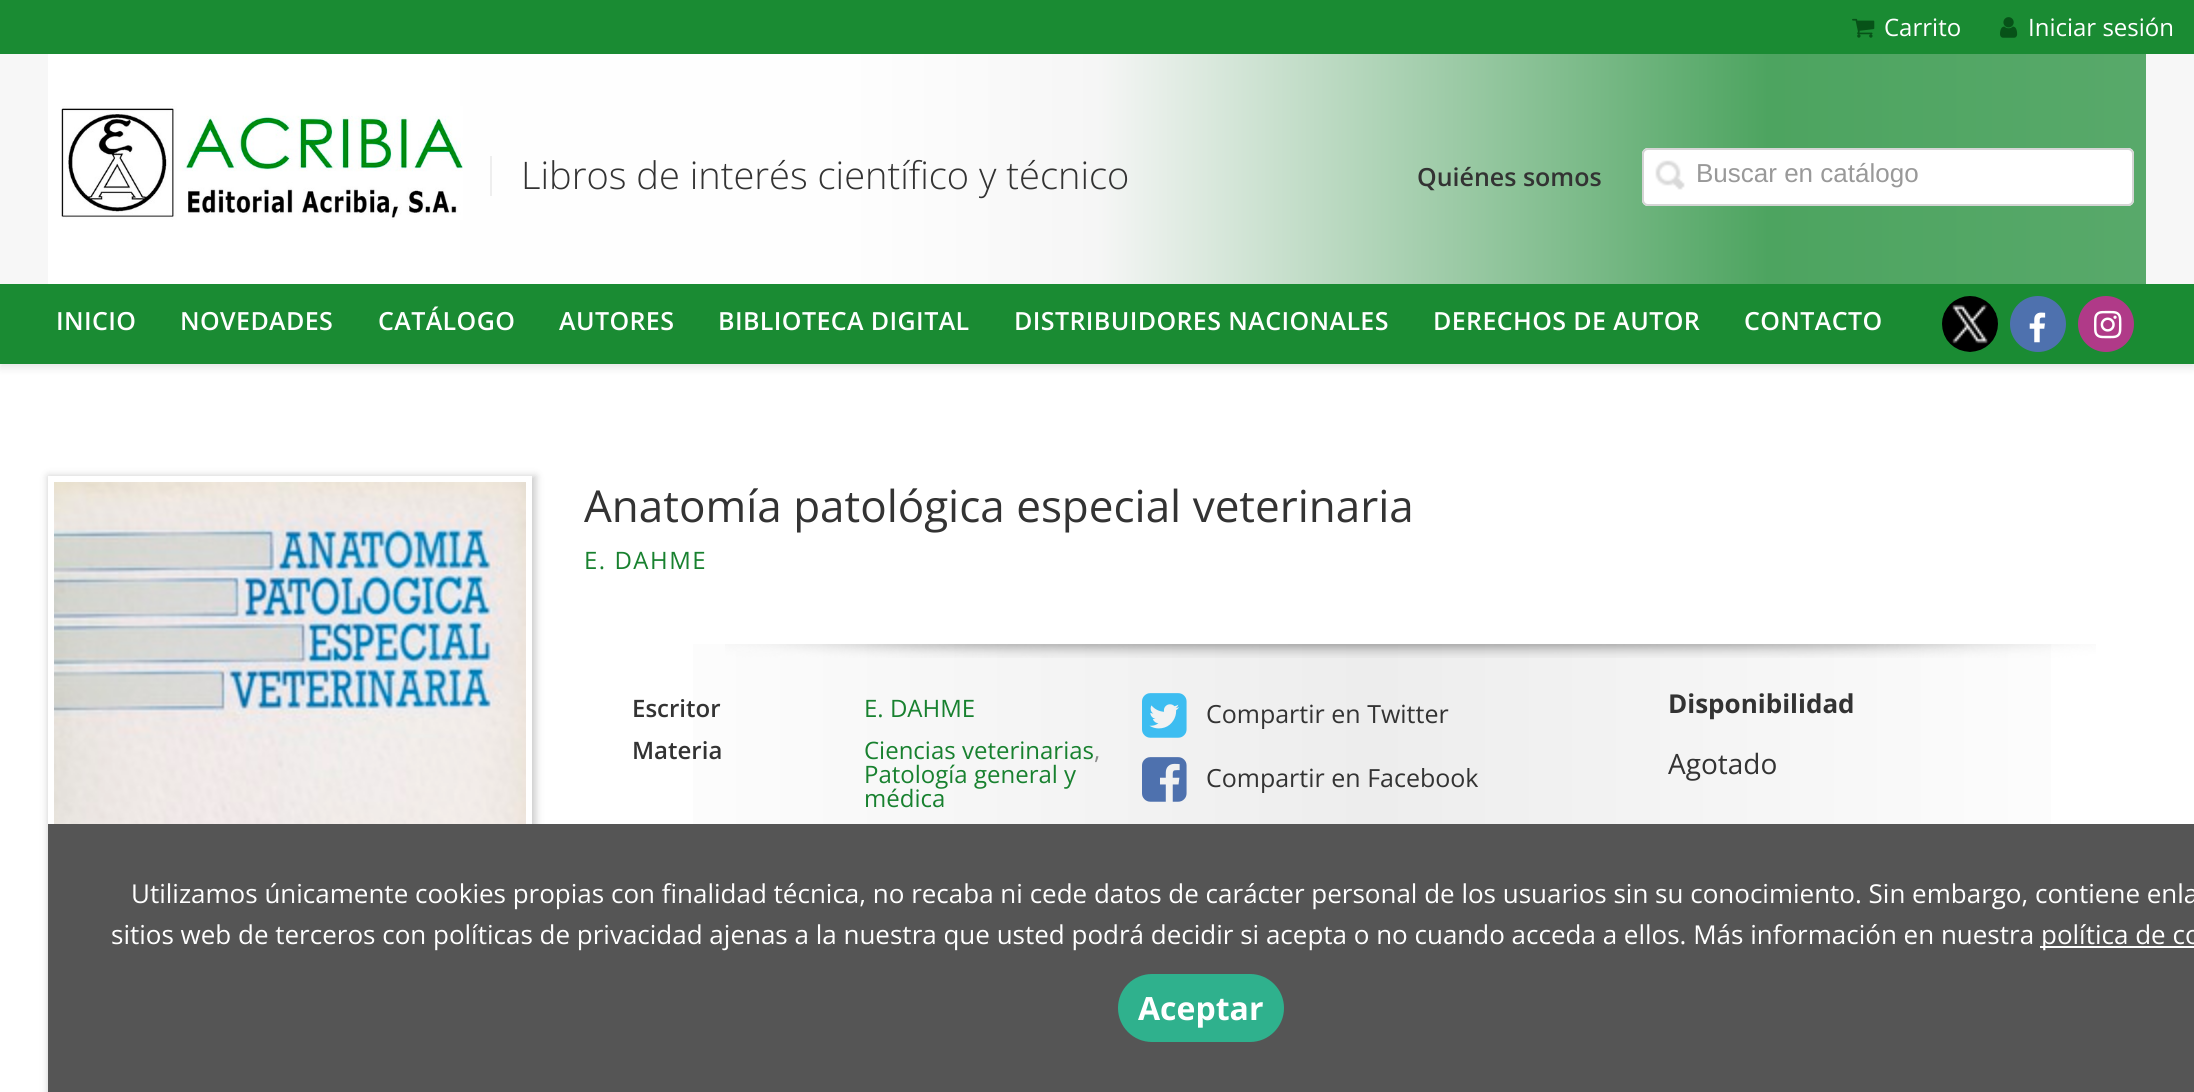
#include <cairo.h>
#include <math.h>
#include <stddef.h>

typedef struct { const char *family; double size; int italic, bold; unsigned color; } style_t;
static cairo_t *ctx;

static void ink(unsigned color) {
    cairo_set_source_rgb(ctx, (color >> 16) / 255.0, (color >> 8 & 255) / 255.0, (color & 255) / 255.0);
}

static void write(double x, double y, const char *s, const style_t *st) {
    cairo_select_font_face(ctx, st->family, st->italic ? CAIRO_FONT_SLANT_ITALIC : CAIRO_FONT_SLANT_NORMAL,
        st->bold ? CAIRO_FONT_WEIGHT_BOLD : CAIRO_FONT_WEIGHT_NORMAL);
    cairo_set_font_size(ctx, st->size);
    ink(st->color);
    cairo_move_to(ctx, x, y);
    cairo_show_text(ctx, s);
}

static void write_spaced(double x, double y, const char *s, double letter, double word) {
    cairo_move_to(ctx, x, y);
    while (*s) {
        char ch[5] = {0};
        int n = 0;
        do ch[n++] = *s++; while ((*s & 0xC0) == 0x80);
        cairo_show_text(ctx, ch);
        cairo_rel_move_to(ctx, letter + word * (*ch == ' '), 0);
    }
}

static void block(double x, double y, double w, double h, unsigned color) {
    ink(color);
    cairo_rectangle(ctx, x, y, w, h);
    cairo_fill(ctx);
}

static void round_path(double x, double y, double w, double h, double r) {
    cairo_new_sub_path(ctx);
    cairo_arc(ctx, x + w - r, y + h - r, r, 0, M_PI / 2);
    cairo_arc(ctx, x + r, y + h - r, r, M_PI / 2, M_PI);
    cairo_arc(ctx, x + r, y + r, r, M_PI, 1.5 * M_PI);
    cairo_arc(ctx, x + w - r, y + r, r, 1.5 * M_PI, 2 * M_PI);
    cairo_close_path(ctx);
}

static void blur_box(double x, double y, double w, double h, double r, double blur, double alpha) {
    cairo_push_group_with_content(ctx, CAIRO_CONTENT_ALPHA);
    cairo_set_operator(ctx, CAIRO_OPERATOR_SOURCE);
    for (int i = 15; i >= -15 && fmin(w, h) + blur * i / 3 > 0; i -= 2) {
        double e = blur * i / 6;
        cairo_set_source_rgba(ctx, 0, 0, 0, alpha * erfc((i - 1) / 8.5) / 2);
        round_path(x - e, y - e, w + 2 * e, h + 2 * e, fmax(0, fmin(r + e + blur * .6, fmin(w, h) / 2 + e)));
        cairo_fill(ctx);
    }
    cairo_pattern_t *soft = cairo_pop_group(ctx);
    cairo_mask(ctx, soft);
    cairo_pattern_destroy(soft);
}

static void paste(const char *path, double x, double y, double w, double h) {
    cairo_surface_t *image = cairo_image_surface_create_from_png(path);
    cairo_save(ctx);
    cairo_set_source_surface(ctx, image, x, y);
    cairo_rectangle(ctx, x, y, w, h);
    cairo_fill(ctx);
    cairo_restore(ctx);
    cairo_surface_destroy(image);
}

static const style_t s1 = {"Open Sans", 24, 0, 0, 0xffffff};
static const style_t s2 = {"Open Sans Light", 38, 0, 0, 0x333333};
static const style_t s3 = {"Open Sans SemiBold", 25, 0, 0, 0x333333};
static const style_t s4 = {"Liberation Sans", 26, 0, 0, 0x999999};
static const style_t s5 = {"Open Sans", 44, 0, 0, 0x333333};
static const style_t s6 = {"Open Sans SemiBold", 24, 0, 0, 0x333333};
static const style_t s7 = {"Open Sans", 24, 0, 0, 0x18812f};
static const style_t s8 = {"Open Sans", 24, 0, 0, 0x888888};
static const style_t s9 = {"Open Sans", 25, 0, 0, 0x333333};
static const style_t s10 = {"Open Sans", 26, 0, 1, 0x333333};
static const style_t s11 = {"Open Sans", 28, 0, 0, 0x333333};
static const style_t s12 = {"Open Sans", 26, 0, 0, 0xffffff};
static const style_t s13 = {"Open Sans", 32, 0, 1, 0xffffff};

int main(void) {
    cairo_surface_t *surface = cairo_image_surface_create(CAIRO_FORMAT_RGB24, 2194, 1092);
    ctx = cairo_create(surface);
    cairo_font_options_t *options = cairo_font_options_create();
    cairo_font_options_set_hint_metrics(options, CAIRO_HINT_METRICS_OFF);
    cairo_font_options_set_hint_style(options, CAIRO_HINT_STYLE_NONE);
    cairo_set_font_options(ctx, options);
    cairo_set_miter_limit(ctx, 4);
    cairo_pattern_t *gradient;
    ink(0xffffff);
    cairo_paint(ctx);
    ink(0x000000);
    blur_box(0, 4, 2194, 364, 0, 4, 0.1);
    block(0, 54, 2194, 230, 0xf7f7f7);
    block(0, 0, 2194, 54, 0x1a8b33);
    paste("pic1.png", 1852, 18, 23, 20);
    write(1884, 36, "Carrito", &s1);
    paste("pic2.png", 2000, 17, 18, 21);
    write(2028, 36, "Iniciar sesión", &s1);
    gradient = cairo_pattern_create_linear(48, 169, 2146, 169);
    cairo_pattern_add_color_stop_rgba(gradient, 0.02, 1, 1, 1, 1);
    cairo_pattern_add_color_stop_rgba(gradient, 0.38, 0.996, 0.996, 0.996, 1);
    cairo_pattern_add_color_stop_rgba(gradient, 0.5, 0.965, 0.965, 0.965, 1);
    cairo_pattern_add_color_stop_rgba(gradient, 0.82, 0.302, 0.643, 0.376, 1);
    cairo_pattern_add_color_stop_rgba(gradient, 1, 0.345, 0.663, 0.416, 1);
    cairo_set_source(ctx, gradient);
    cairo_pattern_destroy(gradient);
    cairo_rectangle(ctx, 48, 54, 2098, 230);
    cairo_fill(ctx);
    paste("pic3.png", 61, 106, 402, 114);
    block(490, 156, 2, 40, 0xeeeeee);
    write(521, 189, "Libros de interés científico y técnico", &s2);
    write(1417, 186, "Quiénes somos", &s3);
    ink(0xffffff);
    round_path(1642, 148, 492, 58, 6);
    cairo_fill(ctx);
    paste("pic4.png", 1655, 160, 30, 30);
    round_path(1643, 149, 490, 56, 5);
    ink(0xd5d5d5);
    cairo_stroke(ctx);
    write(1696, 182, "Buscar en catálogo", &s4);
    block(0, 284, 2194, 80, 0x1a8b33);
    cairo_select_font_face(ctx, "Open Sans SemiBold", CAIRO_FONT_SLANT_NORMAL, CAIRO_FONT_WEIGHT_NORMAL);
    cairo_set_font_size(ctx, 25);
    ink(0xffffff);
    write_spaced(56, 330, "INICIO", 0.4, 0);
    write_spaced(180, 330, "NOVEDADES", 0.4, 0);
    write_spaced(378, 330, "CATÁLOGO", 0.4, 0);
    write_spaced(559, 330, "AUTORES", 0.4, 0);
    write_spaced(718, 330, "BIBLIOTECA DIGITAL", 0.4, 0);
    write_spaced(1014, 330, "DISTRIBUIDORES NACIONALES", 0.4, 0);
    write_spaced(1433, 330, "DERECHOS DE AUTOR", 0.4, 0);
    write_spaced(1744, 330, "CONTACTO", 0.4, 0);
    paste("pic5.png", 1942, 296, 56, 56);
    ink(0x4e71ae);
    cairo_arc(ctx, 2038, 324, 28, 0, 2 * M_PI);
    cairo_fill(ctx);
    paste("pic6.png", 2029, 312, 17, 31);
    ink(0xb03a88);
    cairo_arc(ctx, 2106, 324, 28, 0, 2 * M_PI);
    cairo_fill(ctx);
    paste("pic7.png", 2094, 310, 28, 29);
    cairo_save(ctx);
    cairo_set_fill_rule(ctx, CAIRO_FILL_RULE_EVEN_ODD);
    cairo_new_path(ctx);
    cairo_move_to(ctx, 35, 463);
    cairo_line_to(ctx, 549, 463);
    cairo_line_to(ctx, 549, 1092);
    cairo_line_to(ctx, 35, 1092);
    cairo_close_path(ctx);
    cairo_move_to(ctx, 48, 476);
    cairo_line_to(ctx, 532, 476);
    cairo_line_to(ctx, 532, 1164);
    cairo_line_to(ctx, 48, 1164);
    cairo_close_path(ctx);
    cairo_clip(ctx);
    ink(0x000000);
    blur_box(48, 476, 488, 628, 0, 4, 0.2);
    cairo_restore(ctx);
    paste("pic8.png", 54, 482, 472, 342);
    write(584, 522, "Anatomía patológica especial veterinaria", &s5);
    cairo_set_font_size(ctx, 24);
    ink(0x18812f);
    write_spaced(584, 569, "E. DAHME", 1.5, 0);
    gradient = cairo_pattern_create_linear(584, 904, 2160, 904);
    cairo_pattern_add_color_stop_rgba(gradient, 0, 1, 1, 1, 1);
    cairo_pattern_add_color_stop_rgba(gradient, 0.5, 0.929, 0.929, 0.929, 1);
    cairo_pattern_add_color_stop_rgba(gradient, 1, 1, 1, 1, 1);
    cairo_set_source(ctx, gradient);
    cairo_pattern_destroy(gradient);
    cairo_rectangle(ctx, 693, 644, 1358, 180);
    cairo_fill(ctx);
    paste("pic9.png", 725, 644, 1371, 14);
    write(632, 717, "Escritor", &s6);
    write(864, 717, "E. DAHME", &s7);
    write(632, 759, "Materia", &s6);
    write(864, 759, "Ciencias veterinarias", &s7);
    write(1094, 759, ",", &s8);
    write(864, 783, "Patología general y", &s7);
    write(864, 807, "médica", &s7);
    paste("pic10.png", 1142, 693, 45, 45);
    write(1206, 723, "Compartir en Twitter", &s9);
    paste("pic11.png", 1142, 757, 45, 45);
    write(1206, 787, "Compartir en Facebook", &s9);
    write(1668, 713, "Disponibilidad", &s10);
    write(1668, 774, "Agotado", &s11);
    block(48, 824, 2146, 268, 0x555555);
    write(131, 903, "Utilizamos únicamente cookies propias con finalidad técnica, no recaba ni cede datos de carácter personal de los usuarios sin su conocimiento. Sin embargo, contiene enla", &s12);
    write(111, 944, "sitios web de terceros con políticas de privacidad ajenas a la nuestra que usted podrá decidir si acepta o no cuando acceda a ellos. Más información en nuestra", &s12);
    block(2040, 946, 154, 2, 0xffffff);
    write(2041, 944, "política de co", &s12);
    ink(0x2fb18d);
    round_path(1118, 974, 166, 68, 34);
    cairo_fill(ctx);
    write(1138, 1020, "Aceptar", &s13);
    cairo_surface_write_to_png(surface, "screenshot.png");
    cairo_font_options_destroy(options);
    cairo_destroy(ctx);
    cairo_surface_destroy(surface);
    return 0;
}
